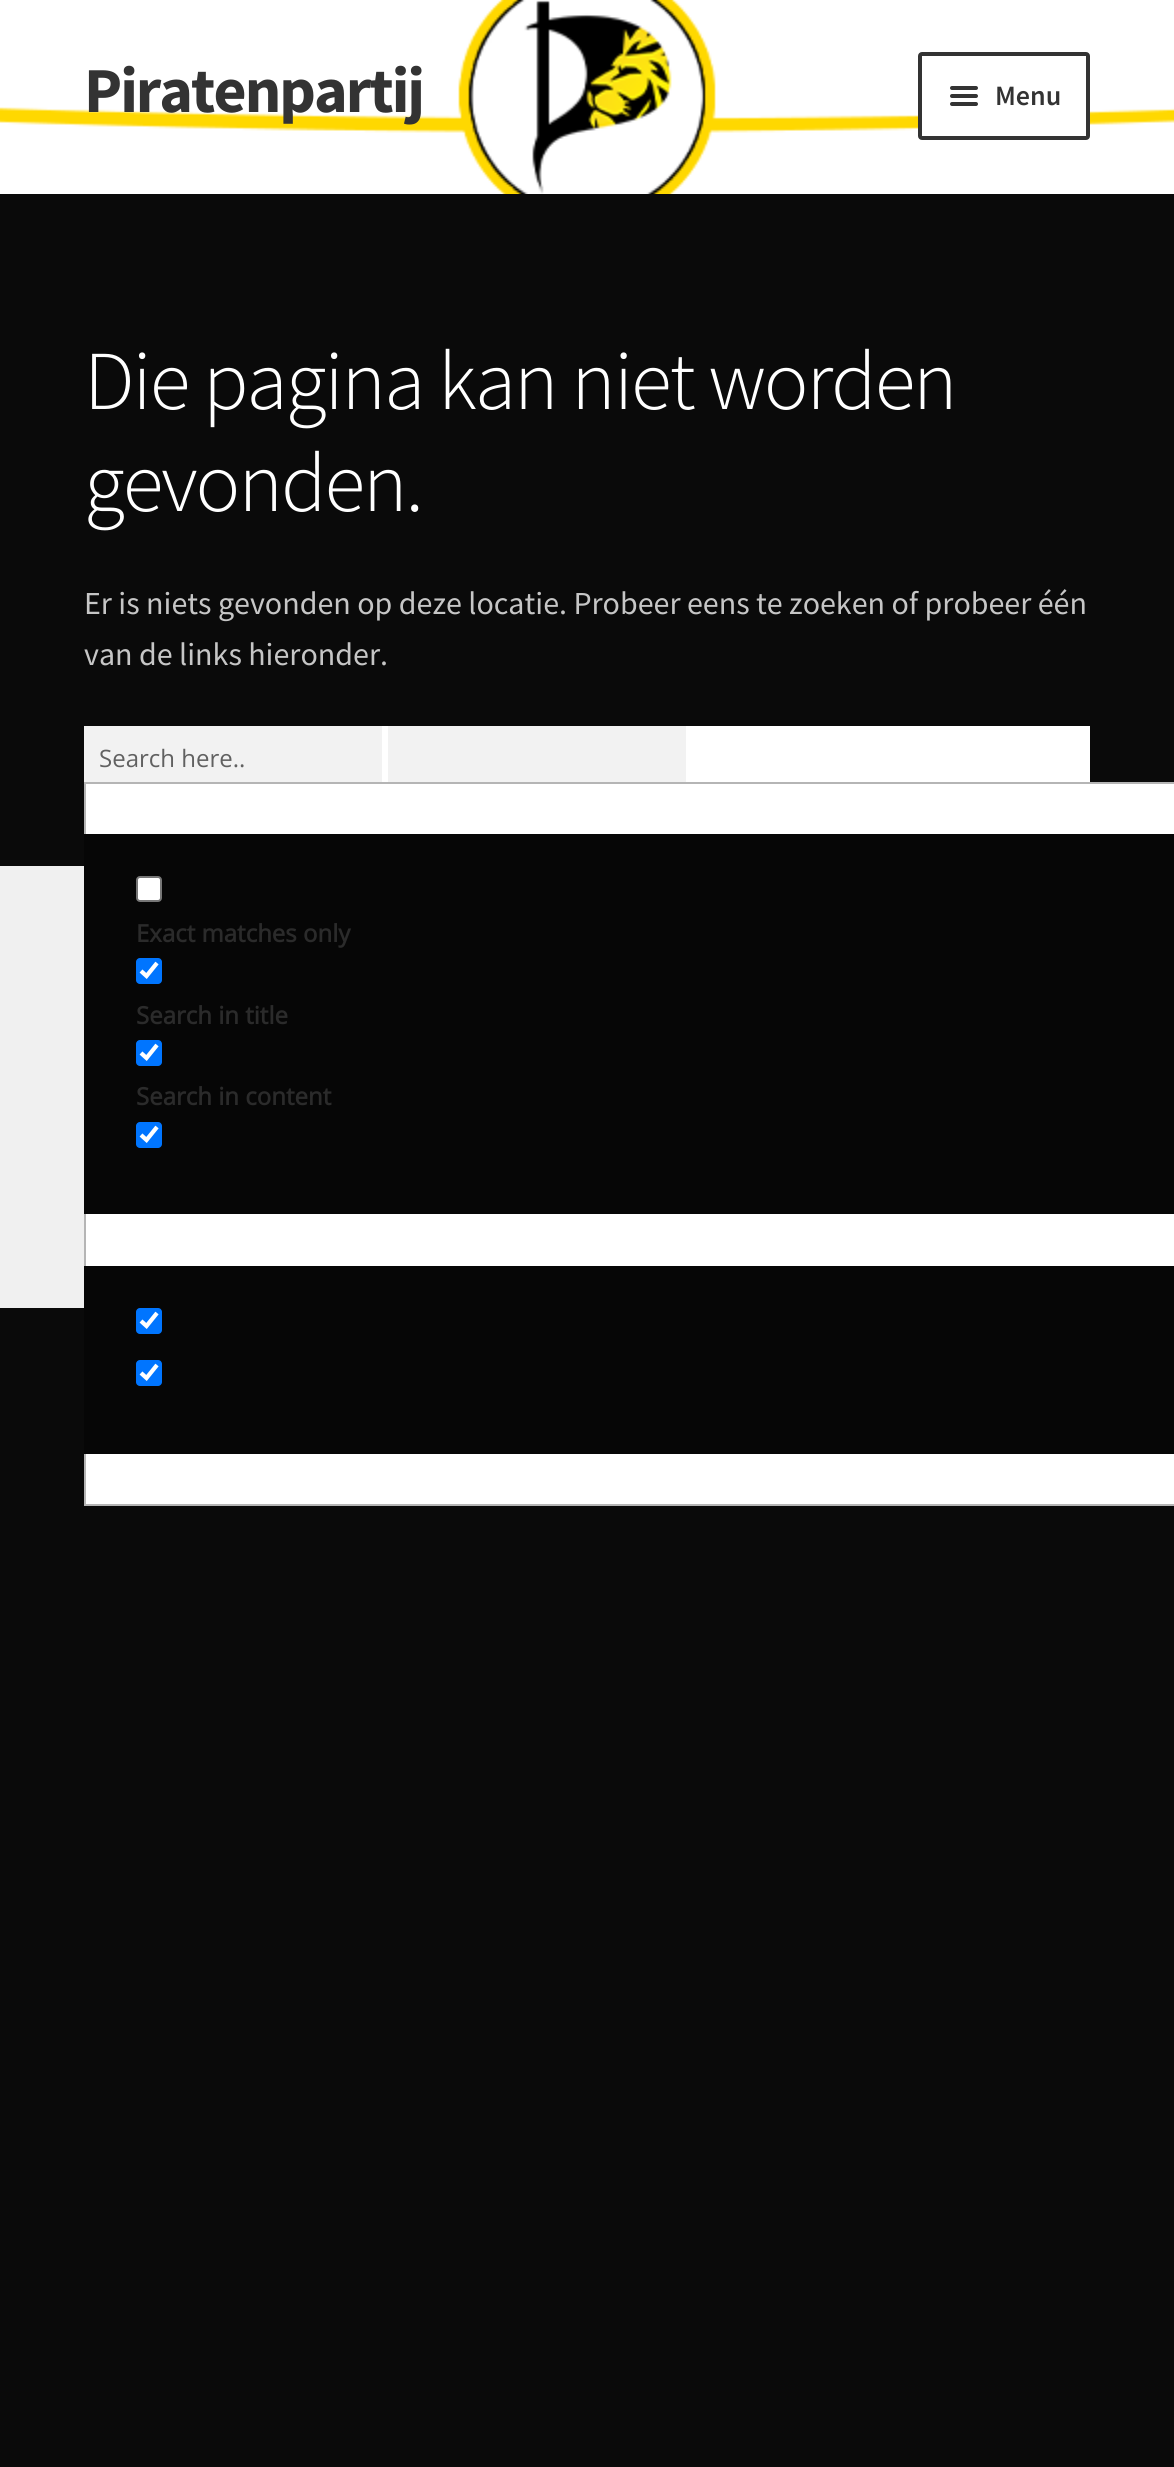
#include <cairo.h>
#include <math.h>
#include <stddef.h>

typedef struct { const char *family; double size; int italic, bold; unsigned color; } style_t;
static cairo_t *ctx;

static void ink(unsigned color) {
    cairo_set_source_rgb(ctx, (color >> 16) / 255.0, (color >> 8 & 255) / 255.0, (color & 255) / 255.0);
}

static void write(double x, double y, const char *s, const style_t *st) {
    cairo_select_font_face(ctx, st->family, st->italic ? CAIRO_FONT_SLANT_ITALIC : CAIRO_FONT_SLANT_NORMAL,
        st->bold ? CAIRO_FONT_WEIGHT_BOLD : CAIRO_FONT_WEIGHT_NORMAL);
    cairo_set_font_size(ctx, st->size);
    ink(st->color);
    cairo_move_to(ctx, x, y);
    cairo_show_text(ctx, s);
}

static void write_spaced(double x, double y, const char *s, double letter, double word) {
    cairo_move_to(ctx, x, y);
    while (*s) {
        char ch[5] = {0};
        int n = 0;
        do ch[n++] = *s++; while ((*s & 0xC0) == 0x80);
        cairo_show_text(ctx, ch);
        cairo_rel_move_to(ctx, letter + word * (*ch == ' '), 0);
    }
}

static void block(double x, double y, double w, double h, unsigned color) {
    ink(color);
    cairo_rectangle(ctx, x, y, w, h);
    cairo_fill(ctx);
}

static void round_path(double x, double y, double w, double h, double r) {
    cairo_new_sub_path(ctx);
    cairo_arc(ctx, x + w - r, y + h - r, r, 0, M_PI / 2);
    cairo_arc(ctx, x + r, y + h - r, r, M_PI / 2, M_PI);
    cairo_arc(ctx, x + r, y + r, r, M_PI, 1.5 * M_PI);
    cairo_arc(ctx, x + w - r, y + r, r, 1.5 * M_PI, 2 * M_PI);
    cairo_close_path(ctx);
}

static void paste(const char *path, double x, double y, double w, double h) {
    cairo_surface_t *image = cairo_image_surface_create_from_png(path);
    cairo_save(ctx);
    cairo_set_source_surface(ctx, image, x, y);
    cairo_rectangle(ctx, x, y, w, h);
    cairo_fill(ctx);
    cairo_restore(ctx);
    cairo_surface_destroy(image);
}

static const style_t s1 = {"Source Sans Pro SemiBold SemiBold", 28, 0, 0, 0x333333};
static const style_t s2 = {"Source Sans Pro", 32, 0, 0, 0xc6c6c6};
static const style_t s3 = {"Open Sans", 24, 0, 0, 0x616161};
static const style_t s4 = {"Open Sans", 24, 0, 1, 0x2b2b2b};

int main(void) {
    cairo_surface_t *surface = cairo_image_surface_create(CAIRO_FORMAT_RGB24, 1174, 2467);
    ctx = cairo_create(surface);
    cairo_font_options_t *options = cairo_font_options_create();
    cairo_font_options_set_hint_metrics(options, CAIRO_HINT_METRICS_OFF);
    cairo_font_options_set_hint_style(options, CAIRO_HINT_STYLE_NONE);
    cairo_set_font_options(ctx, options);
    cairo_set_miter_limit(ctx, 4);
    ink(0x0a0a0a);
    cairo_paint(ctx);
    paste("pic1.png", 0, 0, 1174, 194);
    cairo_select_font_face(ctx, "Source Sans Pro", CAIRO_FONT_SLANT_NORMAL, CAIRO_FONT_WEIGHT_BOLD);
    cairo_set_font_size(ctx, 64);
    ink(0x333333);
    write_spaced(84, 112, "Piratenpartij", -2, 0);
    ink(0xffffff);
    round_path(920, 54, 168, 84, 2);
    cairo_fill_preserve(ctx);
    ink(0x333333);
    cairo_set_line_width(ctx, 4);
    cairo_stroke(ctx);
    round_path(950, 86, 28, 4, 2);
    cairo_fill(ctx);
    round_path(950, 94, 28, 4, 2);
    cairo_fill(ctx);
    write(995, 105, "Menu", &s1);
    round_path(950, 102, 28, 4, 2);
    cairo_fill(ctx);
    block(0, 866, 84, 442, 0xf0f0f0);
    cairo_select_font_face(ctx, "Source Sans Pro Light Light", CAIRO_FONT_SLANT_NORMAL, CAIRO_FONT_WEIGHT_NORMAL);
    cairo_set_font_size(ctx, 83.75);
    ink(0xffffff);
    write_spaced(84, 409, "Die pagina kan niet worden", -2, 0);
    write_spaced(84, 511, "gevonden.", -2, 0);
    write(84, 614, "Er is niets gevonden op deze locatie. Probeer eens te zoeken of probeer één", &s2);
    write(84, 665, "van de links hieronder.", &s2);
    block(382, 726, 708, 56, 0xffffff);
    block(84, 726, 298, 56, 0xf2f2f2);
    write(99, 767, "Search here..", &s3);
    block(388, 726, 298, 56, 0xf2f2f2);
    ink(0xffffff);
    cairo_rectangle(ctx, 85, 783, 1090, 722);
    cairo_fill_preserve(ctx);
    ink(0xb5b5b5);
    cairo_set_line_width(ctx, 2);
    cairo_stroke(ctx);
    block(84, 834, 1090, 380, 0x060606);
    ink(0xffffff);
    round_path(137, 877, 24, 24, 3);
    cairo_fill_preserve(ctx);
    ink(0x767676);
    cairo_stroke(ctx);
    write(136, 942, "Exact matches only", &s4);
    ink(0x0075ff);
    round_path(136, 958, 26, 26, 4);
    cairo_fill(ctx);
    cairo_new_path(ctx);
    cairo_move_to(ctx, 141, 971);
    cairo_line_to(ctx, 146.5, 976);
    cairo_line_to(ctx, 157, 963);
    ink(0xffffff);
    cairo_set_line_width(ctx, 4.2);
    cairo_stroke(ctx);
    write(136, 1024, "Search in title", &s4);
    ink(0x0075ff);
    round_path(136, 1040, 26, 26, 4);
    cairo_fill(ctx);
    cairo_new_path(ctx);
    cairo_move_to(ctx, 141, 1053);
    cairo_line_to(ctx, 146.5, 1058);
    cairo_line_to(ctx, 157, 1045);
    ink(0xffffff);
    cairo_stroke(ctx);
    write(136, 1105, "Search in content", &s4);
    ink(0x0075ff);
    round_path(136, 1122, 26, 26, 4);
    cairo_fill(ctx);
    cairo_new_path(ctx);
    cairo_move_to(ctx, 141, 1135);
    cairo_line_to(ctx, 146.5, 1140);
    cairo_line_to(ctx, 157, 1127);
    ink(0xffffff);
    cairo_stroke(ctx);
    block(84, 1266, 1090, 188, 0x060606);
    ink(0x0075ff);
    round_path(136, 1308, 26, 26, 4);
    cairo_fill(ctx);
    cairo_new_path(ctx);
    cairo_move_to(ctx, 141, 1321);
    cairo_line_to(ctx, 146.5, 1326);
    cairo_line_to(ctx, 157, 1313);
    ink(0xffffff);
    cairo_stroke(ctx);
    ink(0x0075ff);
    round_path(136, 1360, 26, 26, 4);
    cairo_fill(ctx);
    cairo_new_path(ctx);
    cairo_move_to(ctx, 141, 1373);
    cairo_line_to(ctx, 146.5, 1378);
    cairo_line_to(ctx, 157, 1365);
    ink(0xffffff);
    cairo_stroke(ctx);
    cairo_surface_write_to_png(surface, "screenshot.png");
    cairo_font_options_destroy(options);
    cairo_destroy(ctx);
    cairo_surface_destroy(surface);
    return 0;
}
